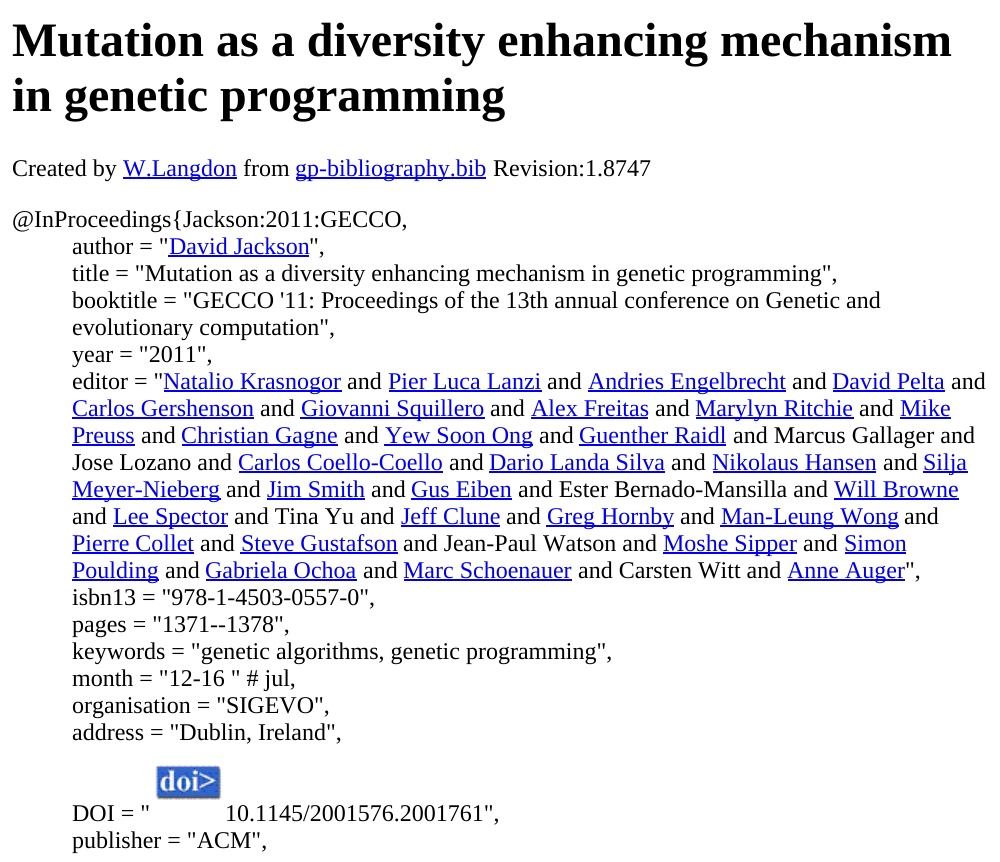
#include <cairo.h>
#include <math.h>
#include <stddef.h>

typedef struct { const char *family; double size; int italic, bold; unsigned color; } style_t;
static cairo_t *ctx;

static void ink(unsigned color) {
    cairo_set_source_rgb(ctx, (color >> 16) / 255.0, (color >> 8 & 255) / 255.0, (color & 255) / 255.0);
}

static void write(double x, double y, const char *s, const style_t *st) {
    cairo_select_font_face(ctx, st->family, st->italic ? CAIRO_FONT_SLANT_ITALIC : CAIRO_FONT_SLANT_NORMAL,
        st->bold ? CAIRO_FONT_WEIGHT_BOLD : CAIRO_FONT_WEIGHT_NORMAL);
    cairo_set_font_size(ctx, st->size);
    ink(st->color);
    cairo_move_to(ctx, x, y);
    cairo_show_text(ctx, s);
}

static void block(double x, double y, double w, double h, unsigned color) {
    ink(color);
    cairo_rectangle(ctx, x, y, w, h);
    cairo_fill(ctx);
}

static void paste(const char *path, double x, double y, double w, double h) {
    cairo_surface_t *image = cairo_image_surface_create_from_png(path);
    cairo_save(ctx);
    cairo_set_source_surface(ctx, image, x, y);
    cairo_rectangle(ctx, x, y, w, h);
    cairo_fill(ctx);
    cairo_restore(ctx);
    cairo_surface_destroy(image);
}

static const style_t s1 = {"Liberation Serif", 48, 0, 1, 0x000000};
static const style_t s2 = {"Liberation Serif", 24, 0, 0, 0x000000};
static const style_t s3 = {"Liberation Serif", 24, 0, 0, 0x0000ee};

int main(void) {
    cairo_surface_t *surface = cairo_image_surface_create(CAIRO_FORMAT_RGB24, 1000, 862);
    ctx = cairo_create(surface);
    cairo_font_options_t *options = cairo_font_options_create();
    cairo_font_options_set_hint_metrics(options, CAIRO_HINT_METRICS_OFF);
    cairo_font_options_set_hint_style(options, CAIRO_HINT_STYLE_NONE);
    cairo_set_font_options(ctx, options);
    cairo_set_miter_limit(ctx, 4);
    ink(0xffffff);
    cairo_paint(ctx);
    write(12, 56, "Mutation as a diversity enhancing mechanism", &s1);
    write(12, 111, "in genetic programming", &s1);
    write(12, 176, "Created by", &s2);
    block(123, 177, 114, 2, 0x0000ee);
    write(123, 176, "W.Langdon", &s3);
    write(243, 176, "from", &s2);
    block(296, 177, 190, 2, 0x0000ee);
    write(295, 176, "gp-bibliography.bib", &s3);
    write(493, 176, "Revision:1.8747", &s2);
    write(12, 227, "@InProceedings{Jackson:2011:GECCO,", &s2);
    write(72, 254, "author = \"", &s2);
    write(169, 254, "David Jackson", &s3);
    block(168, 255, 141, 2, 0x0000ee);
    write(309, 254, "\",", &s2);
    write(72, 281, "title = \"Mutation as a diversity enhancing mechanism in genetic programming\",", &s2);
    write(72, 308, "booktitle = \"GECCO '11: Proceedings of the 13th annual conference on Genetic and", &s2);
    write(72, 335, "evolutionary computation\",", &s2);
    write(72, 362, "year = \"2011\",", &s2);
    write(72, 389, "editor = \"", &s2);
    block(164, 390, 178, 2, 0x0000ee);
    write(163, 389, "Natalio Krasnogor", &s3);
    write(347, 389, "and", &s2);
    write(388, 389, "Pier Luca Lanzi", &s3);
    block(389, 390, 153, 2, 0x0000ee);
    write(547, 389, "and", &s2);
    block(588, 390, 198, 2, 0x0000ee);
    write(588, 389, "Andries Engelbrecht", &s3);
    write(792, 389, "and", &s2);
    write(832, 389, "David Pelta", &s3);
    block(833, 390, 112, 2, 0x0000ee);
    write(951, 389, "and", &s2);
    write(72, 416, "Carlos Gershenson", &s3);
    block(72, 417, 182, 2, 0x0000ee);
    write(260, 416, "and", &s2);
    block(300, 417, 185, 2, 0x0000ee);
    write(301, 416, "Giovanni Squillero", &s3);
    write(490, 416, "and", &s2);
    write(531, 416, "Alex Freitas", &s3);
    block(531, 417, 117, 2, 0x0000ee);
    write(655, 416, "and", &s2);
    block(696, 417, 158, 2, 0x0000ee);
    write(695, 416, "Marylyn Ritchie", &s3);
    write(859, 416, "and", &s2);
    write(900, 416, "Mike", &s3);
    block(900, 417, 51, 2, 0x0000ee);
    write(72, 443, "Preuss", &s3);
    block(72, 444, 63, 2, 0x0000ee);
    write(141, 443, "and", &s2);
    block(182, 444, 156, 2, 0x0000ee);
    write(181, 443, "Christian Gagne", &s3);
    write(344, 443, "and", &s2);
    block(384, 444, 149, 2, 0x0000ee);
    write(385, 443, "Yew Soon Ong", &s3);
    write(539, 443, "and", &s2);
    write(579, 443, "Guenther Raidl", &s3);
    block(579, 444, 147, 2, 0x0000ee);
    write(733, 443, "and Marcus Gallager and", &s2);
    write(72, 470, "Jose Lozano and", &s2);
    write(238, 470, "Carlos Coello-Coello", &s3);
    block(239, 471, 204, 2, 0x0000ee);
    write(449, 470, "and", &s2);
    write(489, 470, "Dario Landa Silva", &s3);
    block(489, 471, 176, 2, 0x0000ee);
    write(671, 470, "and", &s2);
    write(712, 470, "Nikolaus Hansen", &s3);
    block(713, 471, 163, 2, 0x0000ee);
    write(883, 470, "and", &s2);
    block(923, 471, 45, 2, 0x0000ee);
    write(923, 470, "Silja", &s3);
    block(72, 498, 149, 2, 0x0000ee);
    write(72, 497, "Meyer-Nieberg", &s3);
    write(226, 497, "and", &s2);
    write(267, 497, "Jim Smith", &s3);
    block(267, 498, 98, 2, 0x0000ee);
    write(371, 497, "and", &s2);
    write(411, 497, "Gus Eiben", &s3);
    block(411, 498, 101, 2, 0x0000ee);
    write(518, 497, "and Ester Bernado-Mansilla and", &s2);
    write(834, 497, "Will Browne", &s3);
    block(834, 498, 125, 2, 0x0000ee);
    write(72, 524, "and", &s2);
    block(113, 525, 115, 2, 0x0000ee);
    write(113, 524, "Lee Spector", &s3);
    write(234, 524, "and Tina Yu and", &s2);
    write(401, 524, "Jeff Clune", &s3);
    block(401, 525, 99, 2, 0x0000ee);
    write(506, 524, "and", &s2);
    block(546, 525, 128, 2, 0x0000ee);
    write(547, 524, "Greg Hornby", &s3);
    write(680, 524, "and", &s2);
    block(720, 525, 179, 2, 0x0000ee);
    write(721, 524, "Man-Leung Wong", &s3);
    write(904, 524, "and", &s2);
    write(72, 551, "Pierre Collet", &s3);
    block(72, 552, 122, 2, 0x0000ee);
    write(200, 551, "and", &s2);
    write(241, 551, "Steve Gustafson", &s3);
    block(240, 552, 158, 2, 0x0000ee);
    write(403, 551, "and Jean-Paul Watson and", &s2);
    block(663, 552, 134, 2, 0x0000ee);
    write(663, 551, "Moshe Sipper", &s3);
    write(803, 551, "and", &s2);
    write(844, 551, "Simon", &s3);
    block(845, 552, 61, 2, 0x0000ee);
    block(72, 579, 87, 2, 0x0000ee);
    write(72, 578, "Poulding", &s3);
    write(165, 578, "and", &s2);
    write(205, 578, "Gabriela Ochoa", &s3);
    block(206, 579, 151, 2, 0x0000ee);
    write(363, 578, "and", &s2);
    write(403, 578, "Marc Schoenauer", &s3);
    block(404, 579, 168, 2, 0x0000ee);
    write(578, 578, "and Carsten Witt and", &s2);
    block(788, 579, 117, 2, 0x0000ee);
    write(787, 578, "Anne Auger", &s3);
    write(905, 578, "\",", &s2);
    write(72, 605, "isbn13 = \"978-1-4503-0557-0\",", &s2);
    write(72, 632, "pages = \"1371--1378\",", &s2);
    write(72, 659, "keywords = \"genetic algorithms, genetic programming\",", &s2);
    write(72, 686, "month = \"12-16 \" # jul,", &s2);
    write(72, 713, "organisation = \"SIGEVO\",", &s2);
    write(72, 740, "address = \"Dublin, Ireland\",", &s2);
    paste("pic1.png", 155, 764, 68, 36);
    write(72, 821, "DOI = \"", &s2);
    write(225, 821, "10.1145/2001576.2001761\",", &s2);
    write(72, 848, "publisher = \"ACM\",", &s2);
    cairo_surface_write_to_png(surface, "screenshot.png");
    cairo_font_options_destroy(options);
    cairo_destroy(ctx);
    cairo_surface_destroy(surface);
    return 0;
}
